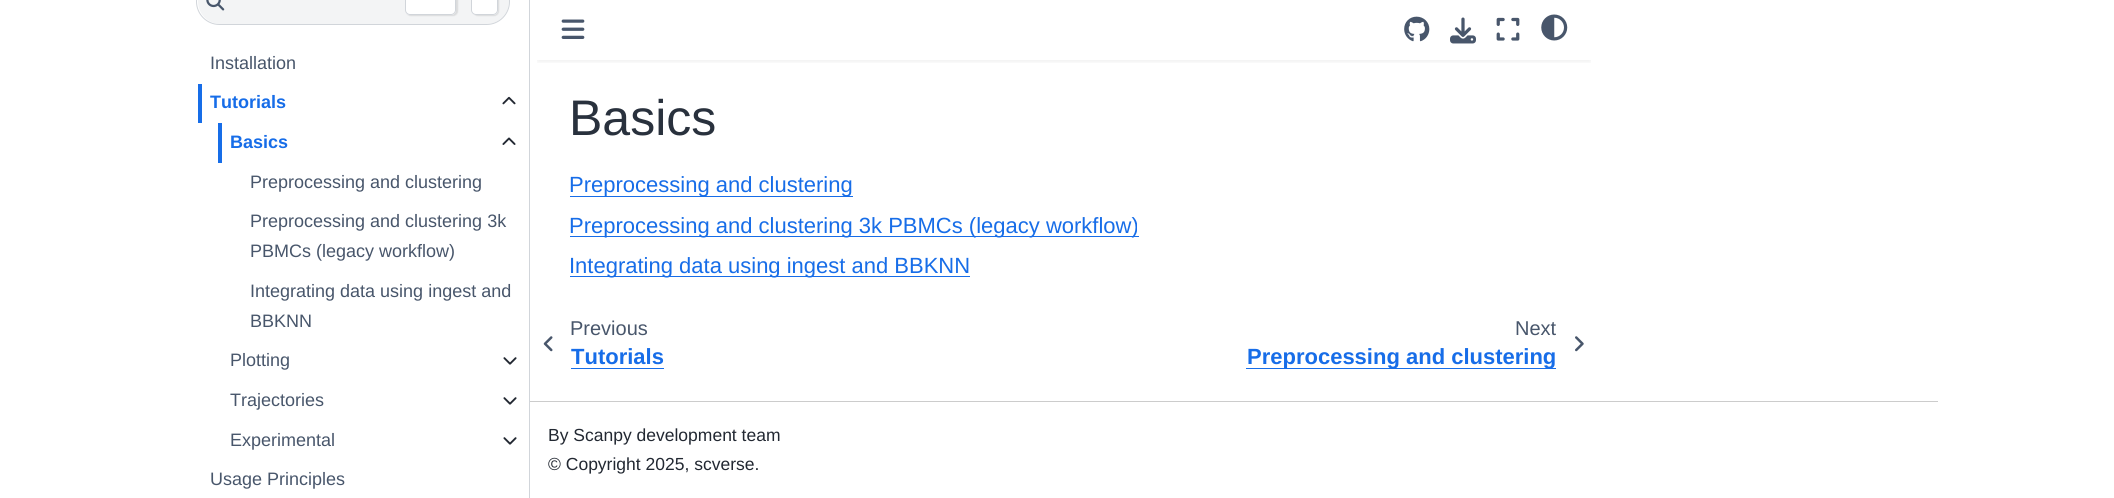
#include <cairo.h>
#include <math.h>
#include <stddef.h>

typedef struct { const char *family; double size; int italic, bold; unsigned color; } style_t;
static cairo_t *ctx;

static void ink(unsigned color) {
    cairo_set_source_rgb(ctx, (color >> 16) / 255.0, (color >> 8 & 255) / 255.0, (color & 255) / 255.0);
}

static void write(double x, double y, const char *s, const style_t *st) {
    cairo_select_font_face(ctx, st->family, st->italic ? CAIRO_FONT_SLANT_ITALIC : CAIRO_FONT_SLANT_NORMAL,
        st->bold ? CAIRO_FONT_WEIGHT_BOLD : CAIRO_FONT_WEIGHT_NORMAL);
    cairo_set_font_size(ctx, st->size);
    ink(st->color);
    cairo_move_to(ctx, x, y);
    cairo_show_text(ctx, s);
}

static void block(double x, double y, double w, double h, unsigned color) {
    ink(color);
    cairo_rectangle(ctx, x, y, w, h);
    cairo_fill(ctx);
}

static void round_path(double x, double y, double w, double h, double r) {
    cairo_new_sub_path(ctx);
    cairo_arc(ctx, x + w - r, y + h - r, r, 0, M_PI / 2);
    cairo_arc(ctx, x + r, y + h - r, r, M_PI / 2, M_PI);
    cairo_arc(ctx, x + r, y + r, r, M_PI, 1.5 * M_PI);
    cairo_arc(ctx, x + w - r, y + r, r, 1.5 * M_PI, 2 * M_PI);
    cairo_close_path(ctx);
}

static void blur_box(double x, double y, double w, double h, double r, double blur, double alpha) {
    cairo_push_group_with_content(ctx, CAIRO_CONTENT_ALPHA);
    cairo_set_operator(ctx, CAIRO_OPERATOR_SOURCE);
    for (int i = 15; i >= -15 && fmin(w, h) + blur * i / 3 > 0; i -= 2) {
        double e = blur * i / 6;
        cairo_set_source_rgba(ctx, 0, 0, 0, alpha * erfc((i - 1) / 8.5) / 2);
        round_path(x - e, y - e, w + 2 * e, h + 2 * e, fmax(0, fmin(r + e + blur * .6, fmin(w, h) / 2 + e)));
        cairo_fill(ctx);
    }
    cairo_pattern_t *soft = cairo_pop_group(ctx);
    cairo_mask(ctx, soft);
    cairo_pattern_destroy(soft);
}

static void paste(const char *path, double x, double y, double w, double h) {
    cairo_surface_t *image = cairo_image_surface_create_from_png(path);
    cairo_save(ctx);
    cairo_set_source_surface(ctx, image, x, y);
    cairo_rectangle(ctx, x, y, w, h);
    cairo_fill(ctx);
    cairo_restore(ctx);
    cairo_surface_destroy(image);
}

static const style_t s1 = {"Liberation Sans", 18, 0, 0, 0x48566b};
static const style_t s2 = {"Liberation Sans", 18, 0, 1, 0x176de8};
static const style_t s3 = {"Liberation Sans", 50, 0, 0, 0x29313d};
static const style_t s4 = {"Liberation Sans", 22, 0, 0, 0x176de8};
static const style_t s5 = {"Liberation Sans", 20, 0, 0, 0x48566b};
static const style_t s6 = {"Liberation Sans", 22, 0, 1, 0x176de8};
static const style_t s7 = {"Liberation Sans", 17.5, 0, 0, 0x222832};

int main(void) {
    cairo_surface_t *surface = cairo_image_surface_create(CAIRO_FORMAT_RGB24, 2114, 498);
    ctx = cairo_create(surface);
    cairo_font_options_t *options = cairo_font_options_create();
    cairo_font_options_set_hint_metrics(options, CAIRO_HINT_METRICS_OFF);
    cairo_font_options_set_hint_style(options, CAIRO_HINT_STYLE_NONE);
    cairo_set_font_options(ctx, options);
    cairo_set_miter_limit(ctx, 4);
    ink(0xffffff);
    cairo_paint(ctx);
    block(529, 0, 1, 498, 0xd1d5da);
    ink(0xf3f4f5);
    round_path(198, -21, 311, 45, 22.5);
    cairo_fill(ctx);
    ink(0x000000);
    blur_box(406, -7, 52, 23, 5, 0.5, 0.1);
    ink(0xffffff);
    cairo_new_path(ctx);
    cairo_move_to(ctx, 405, -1);
    cairo_line_to(ctx, 456, -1);
    cairo_line_to(ctx, 456, 10);
    cairo_curve_to(ctx, 456, 13, 454, 15, 451, 15);
    cairo_line_to(ctx, 410, 15);
    cairo_curve_to(ctx, 407, 15, 405, 13, 405, 10);
    cairo_close_path(ctx);
    cairo_fill(ctx);
    round_path(405.5, -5.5, 50, 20, 4.5);
    ink(0xd1d5da);
    cairo_set_line_width(ctx, 1);
    cairo_stroke(ctx);
    ink(0x000000);
    blur_box(473, -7, 26, 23, 5, 0.5, 0.1);
    ink(0xffffff);
    cairo_new_path(ctx);
    cairo_move_to(ctx, 471, -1);
    cairo_line_to(ctx, 498, -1);
    cairo_line_to(ctx, 498, 10);
    cairo_curve_to(ctx, 498, 13, 496, 15, 493, 15);
    cairo_line_to(ctx, 476, 15);
    cairo_curve_to(ctx, 473, 15, 471, 13, 471, 10);
    cairo_close_path(ctx);
    cairo_fill(ctx);
    round_path(471.5, -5.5, 26, 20, 4.5);
    ink(0xd1d5da);
    cairo_stroke(ctx);
    round_path(196.5, -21.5, 313, 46, 23);
    cairo_stroke(ctx);
    paste("pic1.png", 206, 0, 19, 11);
    write(210, 69, "Installation", &s1);
    block(198, 84, 4, 39, 0x176de8);
    write(210, 108, "Tutorials", &s2);
    paste("pic2.png", 502, 96, 14, 9);
    block(218, 123, 4, 40, 0x176de8);
    write(230, 148, "Basics", &s2);
    paste("pic3.png", 502, 137, 14, 8);
    write(250, 188, "Preprocessing and clustering", &s1);
    write(250, 227, "Preprocessing and clustering 3k", &s1);
    write(250, 257, "PBMCs (legacy workflow)", &s1);
    write(250, 297, "Integrating data using ingest and", &s1);
    write(250, 327, "BBKNN", &s1);
    write(230, 366, "Plotting", &s1);
    paste("pic4.png", 503, 357, 14, 8);
    write(230, 406, "Trajectories", &s1);
    paste("pic4.png", 503, 397, 14, 8);
    write(230, 446, "Experimental", &s1);
    paste("pic4.png", 503, 437, 14, 8);
    write(210, 485, "Usage Principles", &s1);
    cairo_save(ctx);
    cairo_rectangle(ctx, 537, 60, 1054, 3);
    cairo_clip(ctx);
    ink(0x000000);
    blur_box(538, 15, 1052, 45, 0, 4, 0.1);
    cairo_restore(ctx);
    paste("pic5.png", 561, 19, 24, 20);
    paste("pic6.png", 1404, 16, 26, 26);
    paste("pic7.png", 1450, 17, 26, 27);
    paste("pic8.png", 1496, 17, 24, 24);
    paste("pic9.png", 1541, 14, 27, 27);
    write(569, 135, "Basics", &s3);
    block(570, 196, 283, 1, 0x176de8);
    write(569, 192, "Preprocessing and clustering", &s4);
    block(570, 236, 569, 1, 0x176de8);
    write(569, 233, "Preprocessing and clustering 3k PBMCs (legacy workflow)", &s4);
    block(570, 276, 400, 1, 0x176de8);
    write(569, 273, "Integrating data using ingest and BBKNN", &s4);
    paste("pic10.png", 543, 336, 10, 16);
    write(570, 335, "Previous", &s5);
    write(571, 364, "Tutorials", &s6);
    block(571, 368, 93, 1, 0x176de8);
    write(1515, 335, "Next", &s5);
    block(1246, 368, 310, 1, 0x176de8);
    write(1247, 364, "Preprocessing and clustering", &s6);
    paste("pic11.png", 1575, 336, 9, 16);
    block(530, 401, 1408, 1, 0xcccccc);
    write(548, 441, "By Scanpy development team", &s7);
    write(548, 470, "© Copyright 2025, scverse.", &s7);
    cairo_surface_write_to_png(surface, "screenshot.png");
    cairo_font_options_destroy(options);
    cairo_destroy(ctx);
    cairo_surface_destroy(surface);
    return 0;
}
